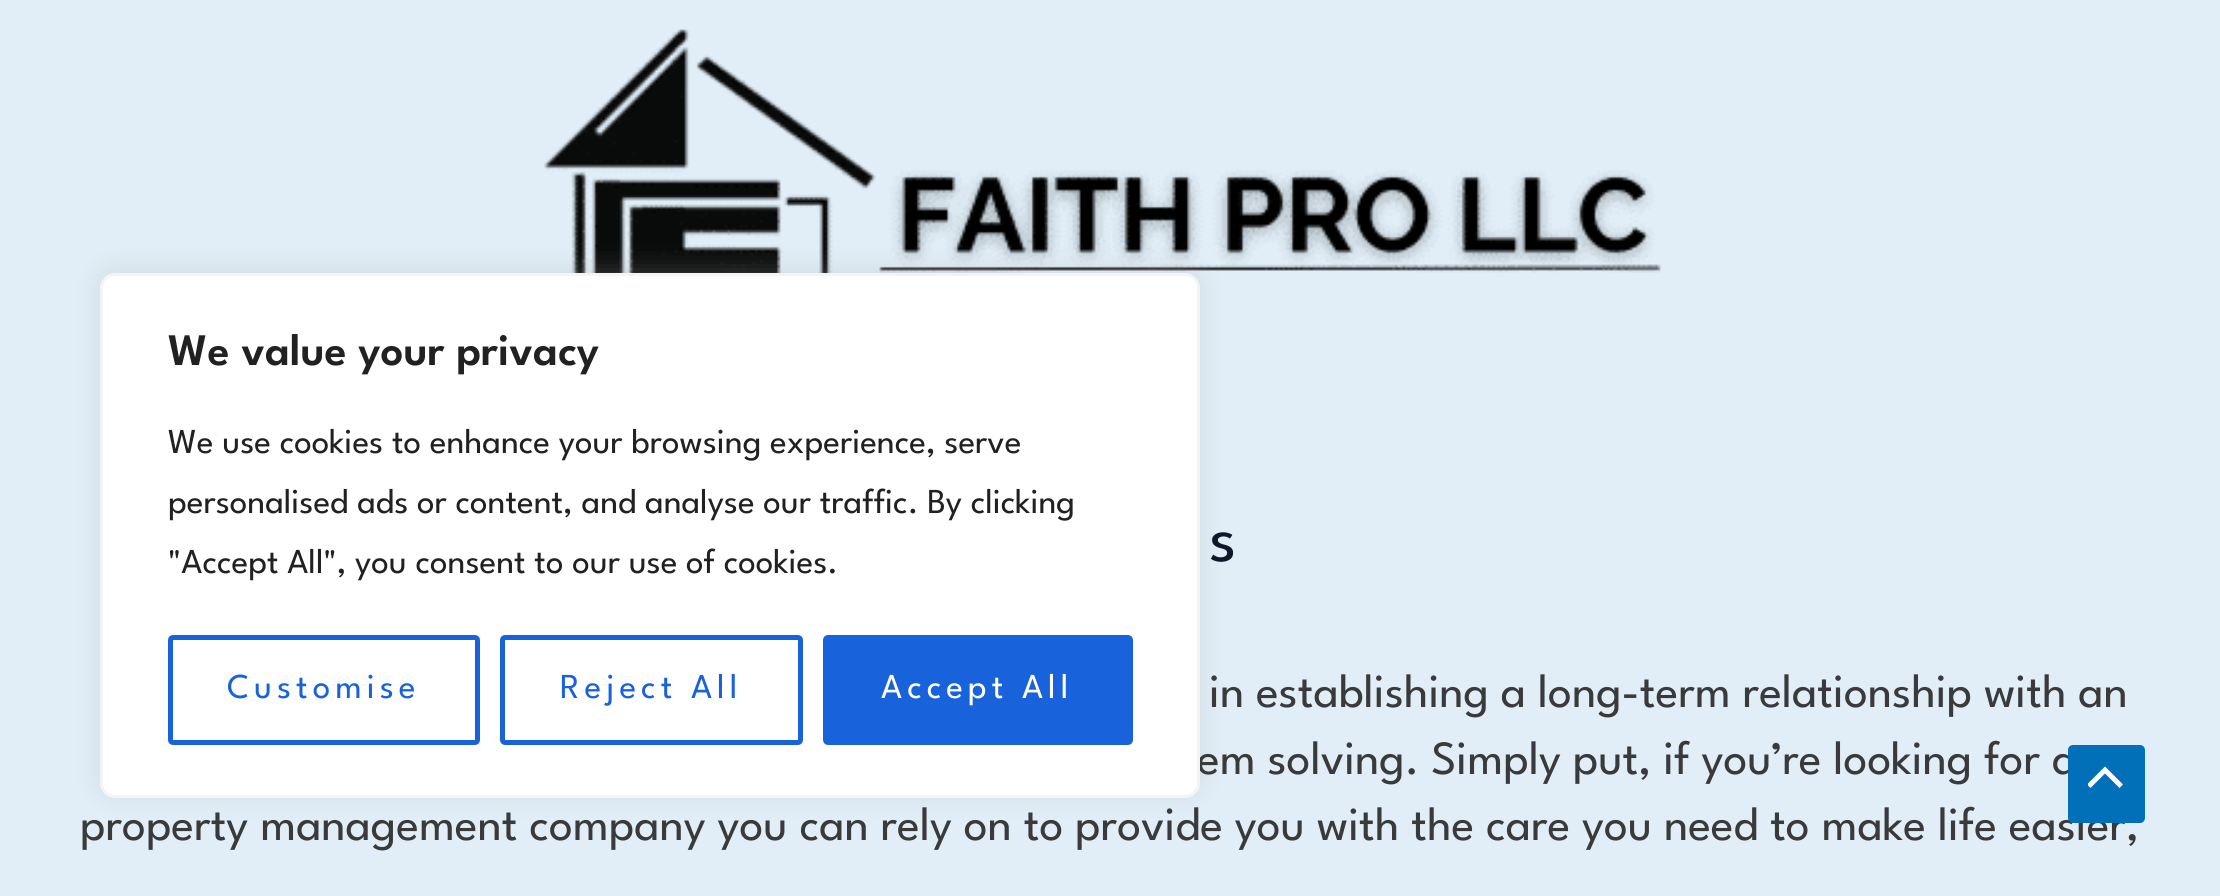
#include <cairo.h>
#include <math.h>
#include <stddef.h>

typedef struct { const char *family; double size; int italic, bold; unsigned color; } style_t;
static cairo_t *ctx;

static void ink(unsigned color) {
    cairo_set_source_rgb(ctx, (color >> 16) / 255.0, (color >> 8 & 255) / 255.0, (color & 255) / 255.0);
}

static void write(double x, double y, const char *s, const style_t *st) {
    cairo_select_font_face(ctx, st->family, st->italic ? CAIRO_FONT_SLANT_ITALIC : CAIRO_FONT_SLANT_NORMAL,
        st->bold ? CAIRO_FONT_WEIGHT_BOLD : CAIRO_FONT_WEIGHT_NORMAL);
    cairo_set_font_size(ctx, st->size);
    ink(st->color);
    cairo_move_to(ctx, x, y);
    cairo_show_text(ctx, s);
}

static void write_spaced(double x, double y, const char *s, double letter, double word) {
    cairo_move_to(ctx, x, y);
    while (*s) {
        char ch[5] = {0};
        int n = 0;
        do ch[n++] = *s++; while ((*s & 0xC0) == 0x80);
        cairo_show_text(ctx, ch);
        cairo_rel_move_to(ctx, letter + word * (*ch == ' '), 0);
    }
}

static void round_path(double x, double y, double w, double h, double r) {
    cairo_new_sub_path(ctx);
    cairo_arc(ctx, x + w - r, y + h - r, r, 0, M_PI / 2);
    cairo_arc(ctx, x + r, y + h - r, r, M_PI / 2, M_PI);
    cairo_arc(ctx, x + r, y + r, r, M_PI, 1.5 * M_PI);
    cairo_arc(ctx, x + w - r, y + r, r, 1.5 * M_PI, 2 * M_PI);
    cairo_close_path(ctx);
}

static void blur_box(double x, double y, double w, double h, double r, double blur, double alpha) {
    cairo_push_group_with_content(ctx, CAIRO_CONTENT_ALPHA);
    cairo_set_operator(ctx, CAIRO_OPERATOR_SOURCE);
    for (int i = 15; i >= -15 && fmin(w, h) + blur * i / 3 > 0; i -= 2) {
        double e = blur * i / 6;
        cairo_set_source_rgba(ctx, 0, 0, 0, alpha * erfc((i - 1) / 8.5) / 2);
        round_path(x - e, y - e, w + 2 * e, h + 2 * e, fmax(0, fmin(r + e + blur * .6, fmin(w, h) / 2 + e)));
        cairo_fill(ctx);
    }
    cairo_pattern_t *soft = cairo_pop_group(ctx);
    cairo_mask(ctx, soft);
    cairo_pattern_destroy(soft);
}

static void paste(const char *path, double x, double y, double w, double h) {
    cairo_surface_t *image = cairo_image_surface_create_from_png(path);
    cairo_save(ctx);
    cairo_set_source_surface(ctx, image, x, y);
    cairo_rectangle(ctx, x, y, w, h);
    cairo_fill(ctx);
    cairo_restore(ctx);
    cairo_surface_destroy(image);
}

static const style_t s1 = {"League Spartan", 47.5, 0, 0, 0x3a3a3a};
static const style_t s2 = {"League Spartan SemiBold", 45, 0, 0, 0x212121};
static const style_t s3 = {"League Spartan", 35, 0, 0, 0x212121};
static const style_t s4 = {"League Spartan", 68, 0, 0, 0x0f172a};

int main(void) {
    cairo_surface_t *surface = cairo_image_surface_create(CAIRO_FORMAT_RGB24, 2220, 896);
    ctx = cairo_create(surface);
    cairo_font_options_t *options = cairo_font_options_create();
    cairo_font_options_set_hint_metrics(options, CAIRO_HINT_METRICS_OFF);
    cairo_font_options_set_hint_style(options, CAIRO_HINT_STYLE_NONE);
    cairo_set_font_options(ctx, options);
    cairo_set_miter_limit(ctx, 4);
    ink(0xe1eef7);
    cairo_paint(ctx);
    paste("pic1.png", 544, 29, 1117, 244);
    ink(0xacabab);
    blur_box(100, 270, 1100, 525, 15, 12.5, 0.3);
    write(1197, 774, "em solving. Simply put, if you’re looking for a", &s1);
    ink(0xffffff);
    round_path(101.5, 274.5, 1097, 522, 13.5);
    cairo_fill_preserve(ctx);
    ink(0xf4f4f4);
    cairo_set_line_width(ctx, 3);
    cairo_stroke(ctx);
    write(168, 365, "We value your privacy", &s2);
    write(168, 453, "We use cookies to enhance your browsing experience, serve", &s3);
    write(168, 513, "personalised ads or content, and analyse our traffic. By clicking", &s3);
    write(168, 573, "\"Accept All\", you consent to our use of cookies.", &s3);
    round_path(170.5, 637.5, 307, 105, 2.5);
    ink(0x1863dc);
    cairo_set_line_width(ctx, 5);
    cairo_stroke(ctx);
    write_spaced(227, 698, "Customise", 5, 0);
    round_path(502.5, 637.5, 298, 105, 2.5);
    cairo_stroke(ctx);
    write_spaced(560, 698, "Reject All", 5, 0);
    round_path(825.5, 637.5, 305, 105, 2.5);
    cairo_fill_preserve(ctx);
    cairo_stroke(ctx);
    ink(0xffffff);
    write_spaced(881, 698, "Accept All", 5, 0);
    write(1209, 561, "s", &s4);
    write(1209, 707, "in establishing a long-term relationship with an", &s1);
    write(80, 840, "property management company you can rely on to provide you with the care you need to make life easier,", &s1);
    ink(0x0170b9);
    round_path(2068, 745, 77, 78, 5);
    cairo_fill(ctx);
    cairo_save(ctx);
    cairo_rectangle(ctx, 2088, 760, 37, 33);
    cairo_clip(ctx);
    ink(0xffffff);
    cairo_new_path(ctx);
    cairo_move_to(ctx, 2123, 784.5);
    cairo_line_to(ctx, 2105, 766.5);
    cairo_line_to(ctx, 2087, 784.5);
    cairo_line_to(ctx, 2090.5, 788);
    cairo_line_to(ctx, 2105, 773.5);
    cairo_line_to(ctx, 2119.5, 788);
    cairo_close_path(ctx);
    cairo_fill(ctx);
    cairo_restore(ctx);
    cairo_surface_write_to_png(surface, "screenshot.png");
    cairo_font_options_destroy(options);
    cairo_destroy(ctx);
    cairo_surface_destroy(surface);
    return 0;
}
